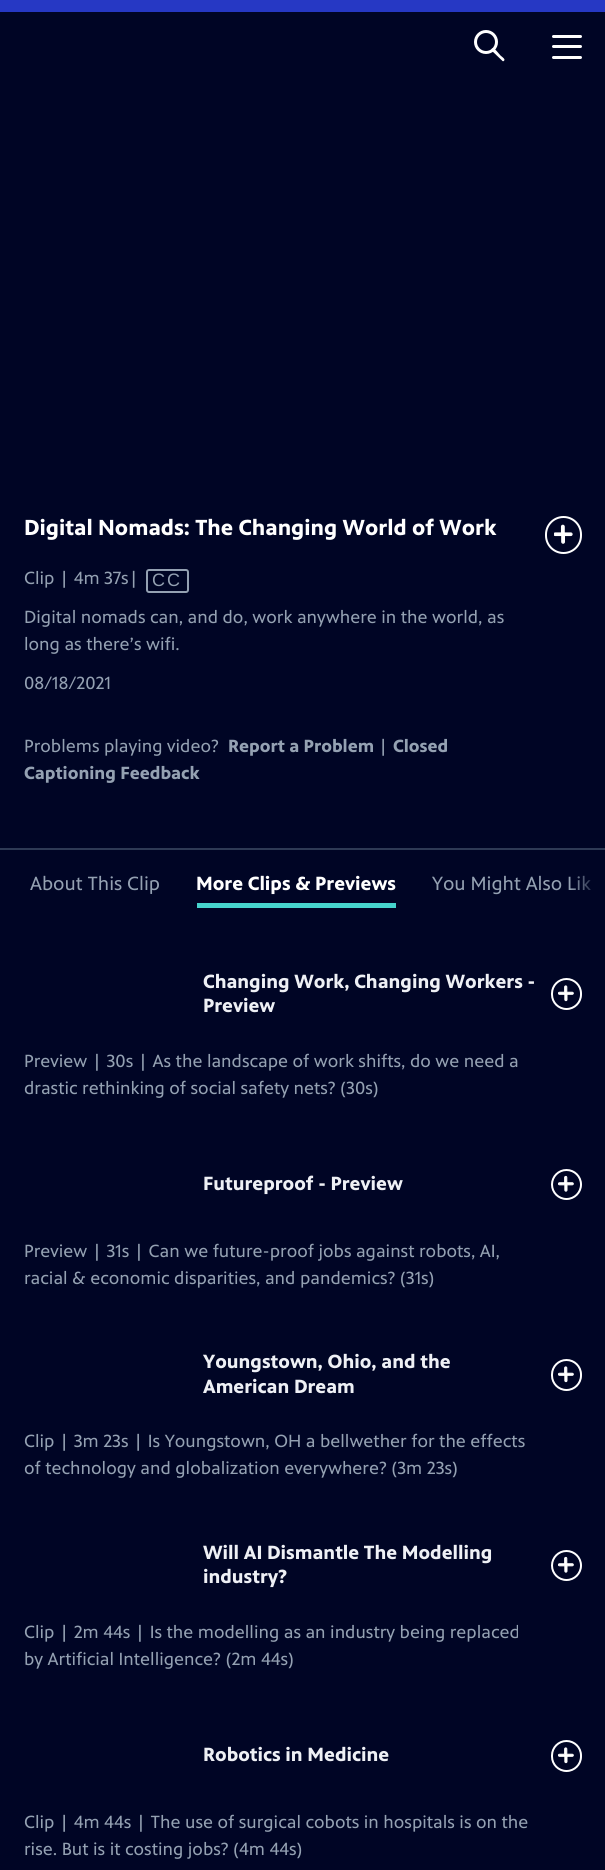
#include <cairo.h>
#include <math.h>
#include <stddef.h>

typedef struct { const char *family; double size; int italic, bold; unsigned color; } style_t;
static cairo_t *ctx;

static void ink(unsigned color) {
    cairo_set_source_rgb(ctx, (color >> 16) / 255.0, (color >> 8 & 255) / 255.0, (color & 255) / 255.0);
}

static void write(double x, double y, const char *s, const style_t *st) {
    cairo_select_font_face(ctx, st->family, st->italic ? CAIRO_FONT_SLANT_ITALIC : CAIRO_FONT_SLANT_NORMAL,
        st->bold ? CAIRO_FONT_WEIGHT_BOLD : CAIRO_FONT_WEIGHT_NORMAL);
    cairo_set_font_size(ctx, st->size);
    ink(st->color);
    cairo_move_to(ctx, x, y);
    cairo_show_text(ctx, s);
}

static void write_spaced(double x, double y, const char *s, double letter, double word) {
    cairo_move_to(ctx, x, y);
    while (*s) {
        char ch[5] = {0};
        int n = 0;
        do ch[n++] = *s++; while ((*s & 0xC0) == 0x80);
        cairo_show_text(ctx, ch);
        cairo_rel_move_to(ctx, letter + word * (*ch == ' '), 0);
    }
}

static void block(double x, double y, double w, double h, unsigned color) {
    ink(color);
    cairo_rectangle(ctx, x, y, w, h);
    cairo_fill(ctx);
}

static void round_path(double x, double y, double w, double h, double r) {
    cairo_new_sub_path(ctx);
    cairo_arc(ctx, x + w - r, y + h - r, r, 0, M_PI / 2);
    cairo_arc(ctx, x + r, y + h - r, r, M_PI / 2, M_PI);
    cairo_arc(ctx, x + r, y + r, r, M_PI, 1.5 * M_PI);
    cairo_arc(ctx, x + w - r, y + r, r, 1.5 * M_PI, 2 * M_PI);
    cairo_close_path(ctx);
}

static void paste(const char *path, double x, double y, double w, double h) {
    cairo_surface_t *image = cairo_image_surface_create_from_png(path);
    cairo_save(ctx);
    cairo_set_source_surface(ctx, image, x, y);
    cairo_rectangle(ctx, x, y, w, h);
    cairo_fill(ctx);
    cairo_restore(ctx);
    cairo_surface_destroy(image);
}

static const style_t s1 = {"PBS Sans", 22.25, 0, 1, 0xffffff};
static const style_t s2 = {"PBS Sans", 18, 0, 0, 0x94a1b2};
static const style_t s3 = {"PBS Sans", 18, 0, 1, 0x94a1b2};
static const style_t s4 = {"PBS Sans", 19.5, 0, 0, 0x94a1b2};
static const style_t s5 = {"PBS Sans", 19.5, 0, 1, 0xffffff};
static const style_t s6 = {"PBS Sans", 19.5, 0, 1, 0xeef0f5};

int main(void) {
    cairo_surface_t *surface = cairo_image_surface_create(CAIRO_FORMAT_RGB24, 605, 1870);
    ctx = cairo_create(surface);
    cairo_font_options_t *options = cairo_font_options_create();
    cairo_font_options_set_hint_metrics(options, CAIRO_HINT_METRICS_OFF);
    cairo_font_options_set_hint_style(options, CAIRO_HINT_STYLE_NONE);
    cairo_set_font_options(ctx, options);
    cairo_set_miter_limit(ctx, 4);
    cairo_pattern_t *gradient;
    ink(0x000525);
    cairo_paint(ctx);
    block(0, 0, 605, 12, 0x2638c4);
    cairo_arc(ctx, 486, 42, 10.5, 0, 2 * M_PI);
    ink(0xffffff);
    cairo_set_line_width(ctx, 3);
    cairo_stroke(ctx);
    cairo_new_path(ctx);
    cairo_move_to(ctx, 502, 60.5);
    cairo_line_to(ctx, 491.5, 50.5);
    cairo_line_to(ctx, 491.5, 49);
    cairo_curve_to(ctx, 493.5, 46.5, 496.5, 51, 497.5, 52);
    cairo_line_to(ctx, 500.5, 55.5);
    cairo_curve_to(ctx, 501.5, 56.5, 504, 58, 504.5, 59.5);
    cairo_curve_to(ctx, 504.5, 61, 503, 62, 502, 60.5);
    cairo_close_path(ctx);
    cairo_fill(ctx);
    round_path(552, 35, 30, 3, 1.5);
    cairo_fill(ctx);
    round_path(552, 45, 30, 3, 1.5);
    cairo_fill(ctx);
    round_path(552, 56, 30, 3, 1.5);
    cairo_fill(ctx);
    write(24, 535, "Digital Nomads: The Changing World of Work", &s1);
    round_path(546, 517, 35, 36, 17.5);
    cairo_set_line_width(ctx, 2);
    cairo_stroke(ctx);
    paste("pic1.png", 554, 524, 19, 20);
    write(24, 584, "Clip | 4m 37s|", &s2);
    round_path(147, 570, 41, 22, 2);
    cairo_stroke(ctx);
    cairo_select_font_face(ctx, "Liberation Sans", CAIRO_FONT_SLANT_NORMAL, CAIRO_FONT_WEIGHT_NORMAL);
    write_spaced(152, 586, "CC", 2, 0);
    write(24, 623, "Digital nomads can, and do, work anywhere in the world, as", &s2);
    write(24, 650, "long as there’s wifi.", &s2);
    write(24, 689, "08/18/2021", &s2);
    write(24, 752, "Problems playing video?", &s2);
    write(228, 752, "Report a Problem", &s3);
    write(378, 752, "|", &s2);
    write(393, 752, "Closed", &s3);
    write(24, 779, "Captioning Feedback", &s3);
    block(0, 848, 605, 2, 0x2e3a55);
    write(30, 890, "About This Clip", &s4);
    write(196, 890, "More Clips & Previews", &s5);
    block(197, 903, 199, 5, 0x46d4cd);
    write(432, 890, "You Might Also Lik", &s4);
    gradient = cairo_pattern_create_linear(570, 899, 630, 899);
    cairo_pattern_add_color_stop_rgba(gradient, 0, 0, 0.02, 0.145, 0);
    cairo_pattern_add_color_stop_rgba(gradient, 0.5, 0, 0.02, 0.145, 1);
    cairo_set_source(ctx, gradient);
    cairo_pattern_destroy(gradient);
    cairo_rectangle(ctx, 571, 875, 20, 15);
    cairo_fill(ctx);
    write(203, 988, "Changing Work, Changing Workers -", &s6);
    write(203, 1012, "Preview", &s6);
    round_path(552, 979, 29, 30, 14.5);
    ink(0xffffff);
    cairo_stroke(ctx);
    paste("pic2.png", 558, 985, 16, 17);
    write(24, 1067, "Preview | 30s | As the landscape of work shifts, do we need a", &s2);
    write(24, 1094, "drastic rethinking of social safety nets? (30s)", &s2);
    write(203, 1190, "Futureproof - Preview", &s6);
    cairo_new_path(ctx);
    cairo_arc(ctx, 566.5, 1184.5, 14.5, 0, 2 * M_PI);
    ink(0xffffff);
    cairo_stroke(ctx);
    paste("pic3.png", 558, 1175, 16, 17);
    write(24, 1257, "Preview | 31s | Can we future-proof jobs against robots, AI,", &s2);
    write(24, 1284, "racial & economic disparities, and pandemics? (31s)", &s2);
    write(203, 1368, "Youngstown, Ohio, and the", &s6);
    write(203, 1393, "American Dream", &s6);
    round_path(552, 1360, 29, 30, 14.5);
    ink(0xffffff);
    cairo_stroke(ctx);
    paste("pic2.png", 558, 1366, 16, 17);
    write(24, 1447, "Clip | 3m 23s | Is Youngstown, OH a bellwether for the effects", &s2);
    write(24, 1474, "of technology and globalization everywhere? (3m 23s)", &s2);
    write(203, 1559, "Will AI Dismantle The Modelling", &s6);
    write(203, 1583, "industry?", &s6);
    cairo_new_path(ctx);
    cairo_arc(ctx, 566.5, 1565.5, 14.5, 0, 2 * M_PI);
    ink(0xffffff);
    cairo_stroke(ctx);
    paste("pic3.png", 558, 1556, 16, 17);
    write(24, 1638, "Clip | 2m 44s | Is the modelling as an industry being replaced", &s2);
    write(24, 1665, "by Artificial Intelligence? (2m 44s)", &s2);
    write(203, 1761, "Robotics in Medicine", &s6);
    round_path(552, 1741, 29, 30, 14.5);
    ink(0xffffff);
    cairo_stroke(ctx);
    paste("pic2.png", 558, 1747, 16, 17);
    write(24, 1828, "Clip | 4m 44s | The use of surgical cobots in hospitals is on the", &s2);
    write(24, 1855, "rise. But is it costing jobs? (4m 44s)", &s2);
    cairo_surface_write_to_png(surface, "screenshot.png");
    cairo_font_options_destroy(options);
    cairo_destroy(ctx);
    cairo_surface_destroy(surface);
    return 0;
}
